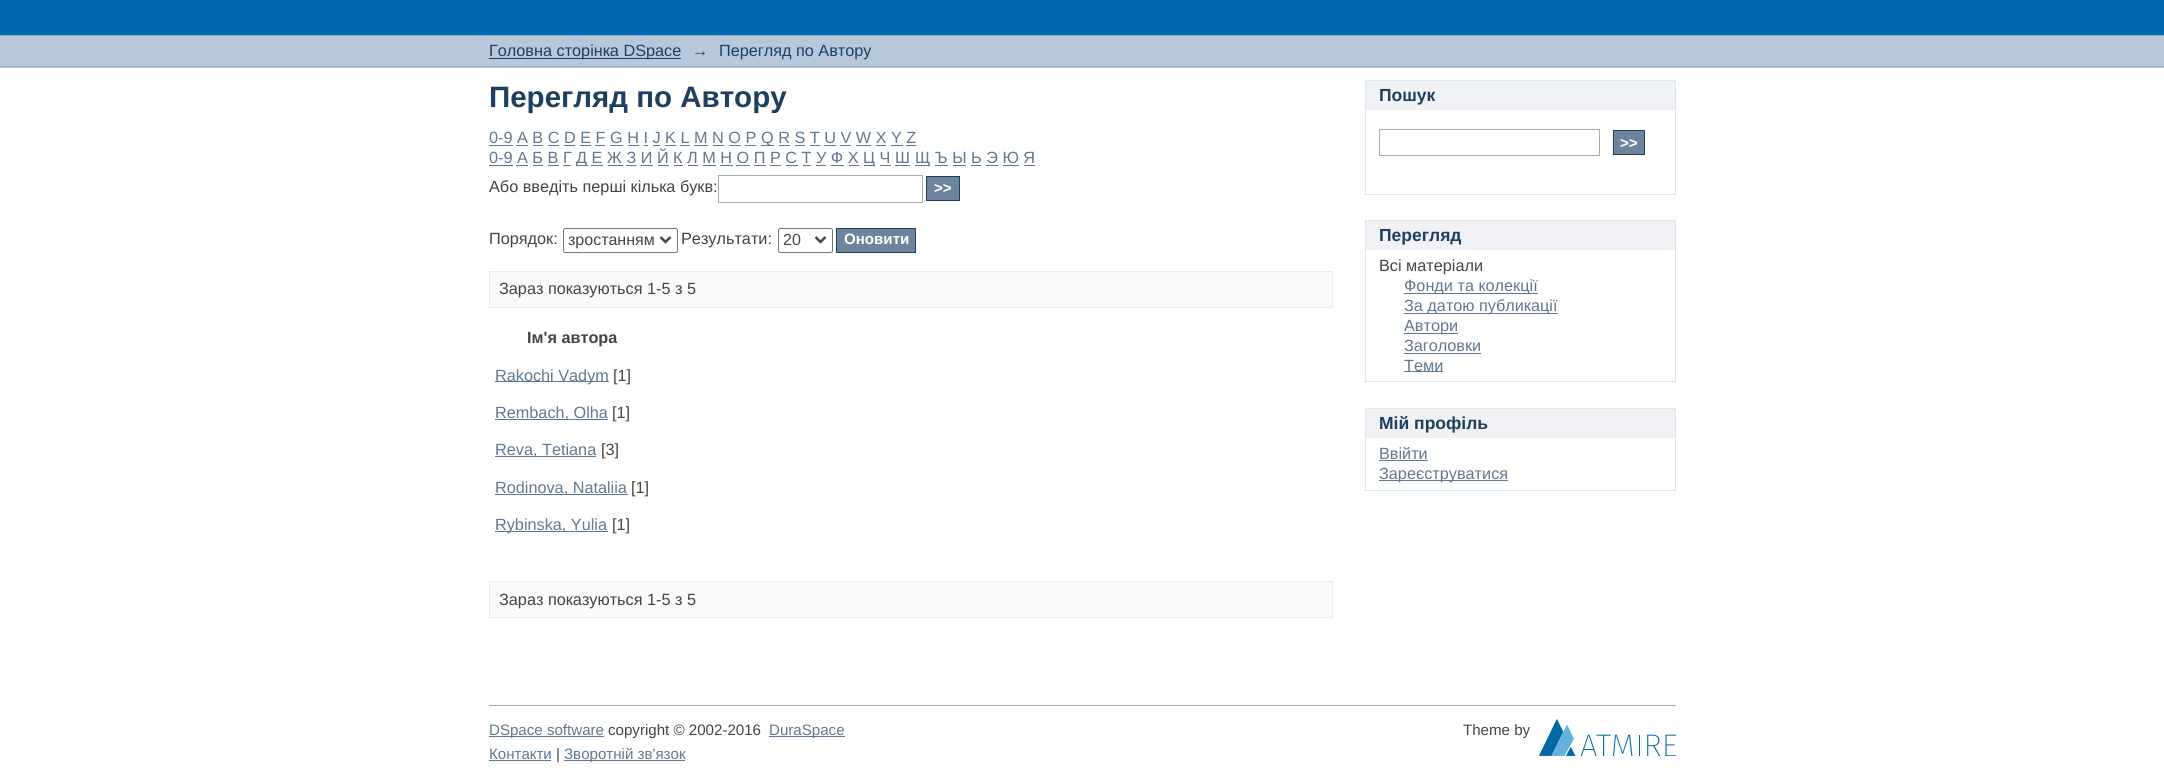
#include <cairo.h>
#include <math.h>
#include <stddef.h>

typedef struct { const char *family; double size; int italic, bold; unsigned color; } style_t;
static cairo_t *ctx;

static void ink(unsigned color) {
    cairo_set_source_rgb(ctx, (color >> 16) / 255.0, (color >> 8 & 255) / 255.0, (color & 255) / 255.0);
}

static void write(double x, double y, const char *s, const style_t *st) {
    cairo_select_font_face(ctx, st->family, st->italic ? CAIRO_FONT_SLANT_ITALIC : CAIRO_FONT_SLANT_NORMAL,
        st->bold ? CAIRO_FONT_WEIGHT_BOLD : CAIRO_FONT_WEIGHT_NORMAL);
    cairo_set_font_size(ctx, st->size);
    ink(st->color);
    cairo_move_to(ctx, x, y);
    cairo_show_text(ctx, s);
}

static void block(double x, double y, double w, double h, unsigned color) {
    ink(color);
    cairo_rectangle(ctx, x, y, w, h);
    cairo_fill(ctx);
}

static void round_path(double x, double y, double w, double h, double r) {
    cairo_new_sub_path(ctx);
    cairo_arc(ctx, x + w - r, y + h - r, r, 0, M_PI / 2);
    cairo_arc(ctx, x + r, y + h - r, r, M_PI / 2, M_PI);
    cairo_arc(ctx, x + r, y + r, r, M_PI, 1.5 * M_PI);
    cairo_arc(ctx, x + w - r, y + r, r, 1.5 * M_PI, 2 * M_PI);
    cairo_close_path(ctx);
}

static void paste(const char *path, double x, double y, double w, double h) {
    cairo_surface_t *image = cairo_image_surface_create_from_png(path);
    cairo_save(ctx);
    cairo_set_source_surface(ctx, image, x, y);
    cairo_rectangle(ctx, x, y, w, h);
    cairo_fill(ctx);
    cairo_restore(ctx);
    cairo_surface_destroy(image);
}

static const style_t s1 = {"Liberation Sans", 16.25, 0, 0, 0x1f3f5e};
static const style_t s2 = {"Liberation Sans", 29.5, 0, 1, 0x1f3f5e};
static const style_t s3 = {"Liberation Sans", 16.25, 0, 0, 0x607890};
static const style_t s4 = {"Liberation Sans", 16.25, 0, 0, 0x444444};
static const style_t s5 = {"Liberation Sans", 15.1, 0, 1, 0xffffff};
static const style_t s6 = {"Liberation Sans", 16, 0, 0, 0x444444};
static const style_t s7 = {"Liberation Sans", 16.25, 0, 1, 0x444444};
static const style_t s8 = {"Liberation Sans", 17.5, 0, 1, 0x1f3f5e};
static const style_t s9 = {"Liberation Sans", 15.1, 0, 0, 0x607890};
static const style_t s10 = {"Liberation Sans", 15.1, 0, 0, 0x444444};

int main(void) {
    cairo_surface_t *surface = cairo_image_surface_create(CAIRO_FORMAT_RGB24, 2164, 768);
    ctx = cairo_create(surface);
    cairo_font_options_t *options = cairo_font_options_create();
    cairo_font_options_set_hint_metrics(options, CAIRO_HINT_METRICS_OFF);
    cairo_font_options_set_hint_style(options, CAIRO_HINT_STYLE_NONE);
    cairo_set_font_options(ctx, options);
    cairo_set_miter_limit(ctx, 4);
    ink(0xffffff);
    cairo_paint(ctx);
    block(0, 0, 2164, 35, 0x0067b2);
    block(0, 36, 2164, 32, 0xb6c8d9);
    block(0, 35, 2164, 1, 0x9cacba);
    block(0, 66, 2164, 1, 0x9cacba);
    block(489, 58, 192, 1, 0x1f3f5e);
    write(489, 56, "Головна сторінка DSpace", &s1);
    write(692, 56, "→", &s1);
    write(719, 56, "Перегляд по Автору", &s1);
    write(489, 107, "Перегляд по Автору", &s2);
    write(489, 143, "0-9 A B C D E F G H I J K L M N O P", &s3);
    block(489, 145, 24, 1, 0x607890);
    block(761, 145, 13, 1, 0x607890);
    write(761, 143, "Q R S T U V W X Y Z", &s3);
    block(516, 145, 12, 1, 0x607890);
    block(533, 145, 10, 1, 0x607890);
    block(548, 145, 11, 1, 0x607890);
    block(564, 145, 11, 1, 0x607890);
    block(580, 145, 11, 1, 0x607890);
    block(595, 145, 10, 1, 0x607890);
    block(610, 145, 13, 1, 0x607890);
    block(628, 145, 11, 1, 0x607890);
    block(644, 145, 4, 1, 0x607890);
    block(653, 145, 7, 1, 0x607890);
    block(665, 145, 11, 1, 0x607890);
    block(680, 145, 10, 1, 0x607890);
    block(694, 145, 14, 1, 0x607890);
    block(713, 145, 11, 1, 0x607890);
    block(729, 145, 12, 1, 0x607890);
    block(745, 145, 11, 1, 0x607890);
    block(779, 145, 11, 1, 0x607890);
    block(795, 145, 10, 1, 0x607890);
    block(810, 145, 10, 1, 0x607890);
    block(824, 145, 12, 1, 0x607890);
    block(840, 145, 11, 1, 0x607890);
    block(856, 145, 15, 1, 0x607890);
    block(876, 145, 10, 1, 0x607890);
    block(891, 145, 12, 1, 0x607890);
    block(906, 145, 10, 1, 0x607890);
    write(489, 163, "0-9 А Б В Г", &s3);
    block(489, 165, 24, 1, 0x607890);
    block(576, 165, 12, 1, 0x607890);
    write(576, 163, "Д Е Ж З И Й К Л М Н О П Р С Т У Ф Х", &s3);
    block(864, 165, 11, 1, 0x607890);
    write(863, 163, "Ц Ч Ш", &s3);
    block(915, 165, 15, 1, 0x607890);
    write(915, 163, "Щ Ъ Ы Ь Э Ю Я", &s3);
    block(516, 165, 12, 1, 0x607890);
    block(533, 165, 10, 1, 0x607890);
    block(548, 165, 11, 1, 0x607890);
    block(563, 165, 8, 1, 0x607890);
    block(591, 165, 12, 1, 0x607890);
    block(608, 165, 15, 1, 0x607890);
    block(626, 165, 10, 1, 0x607890);
    block(641, 165, 12, 1, 0x607890);
    block(658, 165, 11, 1, 0x607890);
    block(674, 165, 9, 1, 0x607890);
    block(688, 165, 10, 1, 0x607890);
    block(703, 165, 13, 1, 0x607890);
    block(720, 165, 13, 1, 0x607890);
    block(736, 165, 14, 1, 0x607890);
    block(754, 165, 12, 1, 0x607890);
    block(770, 165, 11, 1, 0x607890);
    block(786, 165, 12, 1, 0x607890);
    block(803, 165, 8, 1, 0x607890);
    block(816, 165, 10, 1, 0x607890);
    block(831, 165, 13, 1, 0x607890);
    block(849, 165, 10, 1, 0x607890);
    block(880, 165, 11, 1, 0x607890);
    block(895, 165, 15, 1, 0x607890);
    block(935, 165, 13, 1, 0x607890);
    block(953, 165, 13, 1, 0x607890);
    block(971, 165, 10, 1, 0x607890);
    block(986, 165, 12, 1, 0x607890);
    block(1003, 165, 16, 1, 0x607890);
    block(1024, 165, 11, 1, 0x607890);
    write(489, 192, "Або введіть перші кілька букв:", &s4);
    cairo_rectangle(ctx, 718.5, 175.5, 204, 27);
    ink(0xaaaaaa);
    cairo_set_line_width(ctx, 1);
    cairo_stroke(ctx);
    ink(0x6d859c);
    cairo_rectangle(ctx, 926.5, 176.5, 33, 24);
    cairo_fill_preserve(ctx);
    ink(0x1f3f5e);
    cairo_stroke(ctx);
    write(934, 193, ">>", &s5);
    write(489, 244, "Порядок:", &s4);
    round_path(563.5, 228.5, 114, 24, 2);
    ink(0x767676);
    cairo_stroke(ctx);
    cairo_new_path(ctx);
    cairo_move_to(ctx, 660.5, 237);
    cairo_line_to(ctx, 665.5, 242);
    cairo_line_to(ctx, 670.5, 237);
    ink(0x444444);
    cairo_set_line_width(ctx, 2.5);
    cairo_stroke(ctx);
    write(568, 245, "зростанням", &s6);
    write(681, 244, "Результати:", &s4);
    round_path(778.5, 228.5, 54, 24, 2);
    ink(0x767676);
    cairo_set_line_width(ctx, 1);
    cairo_stroke(ctx);
    cairo_new_path(ctx);
    cairo_move_to(ctx, 815.5, 237);
    cairo_line_to(ctx, 820.5, 242);
    cairo_line_to(ctx, 825.5, 237);
    ink(0x444444);
    cairo_set_line_width(ctx, 2.5);
    cairo_stroke(ctx);
    write(783, 245, "20", &s6);
    ink(0x6d859c);
    cairo_rectangle(ctx, 836.5, 228.5, 79, 24);
    cairo_fill_preserve(ctx);
    ink(0x1f3f5e);
    cairo_set_line_width(ctx, 1);
    cairo_stroke(ctx);
    write(844, 244, "Оновити", &s5);
    ink(0xfafafa);
    cairo_rectangle(ctx, 489.5, 271.5, 843, 36);
    cairo_fill_preserve(ctx);
    ink(0xebebeb);
    cairo_stroke(ctx);
    write(499, 294, "Зараз показуються 1-5 з 5", &s4);
    write(527, 343, "Ім'я автора", &s7);
    block(495, 381, 114, 1, 0x607890);
    write(495, 381, "Rakochi Vadym", &s3);
    write(613, 381, "[1]", &s4);
    block(495, 419, 113, 1, 0x607890);
    write(495, 418, "Rembach, Olha", &s3);
    write(612, 418, "[1]", &s4);
    block(495, 456, 101, 1, 0x607890);
    write(495, 455, "Reva, Tetiana", &s3);
    write(601, 455, "[3]", &s4);
    block(495, 494, 133, 1, 0x607890);
    write(495, 493, "Rodinova, Nataliia", &s3);
    write(631, 493, "[1]", &s4);
    block(495, 531, 113, 1, 0x607890);
    write(495, 530, "Rybinska, Yulia", &s3);
    write(612, 530, "[1]", &s4);
    ink(0xfafafa);
    cairo_rectangle(ctx, 489.5, 581.5, 843, 36);
    cairo_fill_preserve(ctx);
    ink(0xebebeb);
    cairo_stroke(ctx);
    write(499, 605, "Зараз показуються 1-5 з 5", &s4);
    block(1366, 81, 309, 29, 0xf0f2f5);
    block(1365, 80, 311, 1, 0xd8e8eb);
    block(1675, 80, 1, 115, 0xd8e8eb);
    block(1365, 80, 1, 30, 0xd8e8eb);
    write(1379, 101, "Пошук", &s8);
    block(1365, 194, 311, 1, 0xd8e8eb);
    block(1365, 110, 1, 85, 0xd8e8eb);
    cairo_rectangle(ctx, 1379.5, 129.5, 220, 26);
    ink(0xaaaaaa);
    cairo_stroke(ctx);
    ink(0x6d859c);
    cairo_rectangle(ctx, 1613.5, 130.5, 31, 24);
    cairo_fill_preserve(ctx);
    ink(0x1f3f5e);
    cairo_stroke(ctx);
    write(1620, 148, ">>", &s5);
    block(1366, 221, 309, 29, 0xf0f2f5);
    block(1365, 220, 311, 1, 0xd8e8eb);
    block(1675, 220, 1, 163, 0xd8e8eb);
    block(1365, 220, 1, 30, 0xd8e8eb);
    write(1379, 241, "Перегляд", &s8);
    block(1365, 381, 311, 1, 0xd8e8eb);
    block(1365, 250, 1, 133, 0xd8e8eb);
    write(1379, 271, "Всі матеріали", &s4);
    block(1404, 293, 134, 1, 0x607890);
    write(1404, 291, "Фонди та колекції", &s3);
    block(1404, 313, 154, 1, 0x607890);
    write(1404, 311, "За датою публикації", &s3);
    block(1404, 333, 54, 1, 0x607890);
    write(1404, 331, "Автори", &s3);
    write(1404, 351, "Заголовки", &s3);
    block(1404, 353, 77, 1, 0x607890);
    block(1404, 371, 39, 1, 0x607890);
    write(1404, 371, "Теми", &s3);
    block(1366, 409, 309, 29, 0xf0f2f5);
    block(1365, 408, 311, 1, 0xd8e8eb);
    block(1675, 408, 1, 83, 0xd8e8eb);
    block(1365, 408, 1, 30, 0xd8e8eb);
    write(1379, 429, "Мій профіль", &s8);
    block(1365, 490, 311, 1, 0xd8e8eb);
    block(1365, 438, 1, 53, 0xd8e8eb);
    write(1379, 459, "Ввійти", &s3);
    block(1379, 460, 49, 1, 0x607890);
    block(1379, 480, 129, 1, 0x607890);
    write(1379, 479, "Зареєструватися", &s3);
    block(489, 705, 1187, 1, 0x9cacba);
    block(489, 736, 115, 1, 0x607890);
    write(489, 735, "DSpace software", &s9);
    write(608, 735, "copyright © 2002-2016", &s10);
    block(769, 736, 76, 1, 0x607890);
    write(769, 735, "DuraSpace", &s9);
    write(1463, 735, "Theme by", &s10);
    paste("pic1.png", 1539, 719, 137, 37);
    write(489, 759, "Контакти", &s9);
    block(489, 760, 62, 1, 0x607890);
    write(556, 759, "|", &s10);
    block(564, 760, 121, 1, 0x607890);
    write(564, 759, "Зворотній зв'язок", &s9);
    cairo_surface_write_to_png(surface, "screenshot.png");
    cairo_font_options_destroy(options);
    cairo_destroy(ctx);
    cairo_surface_destroy(surface);
    return 0;
}
